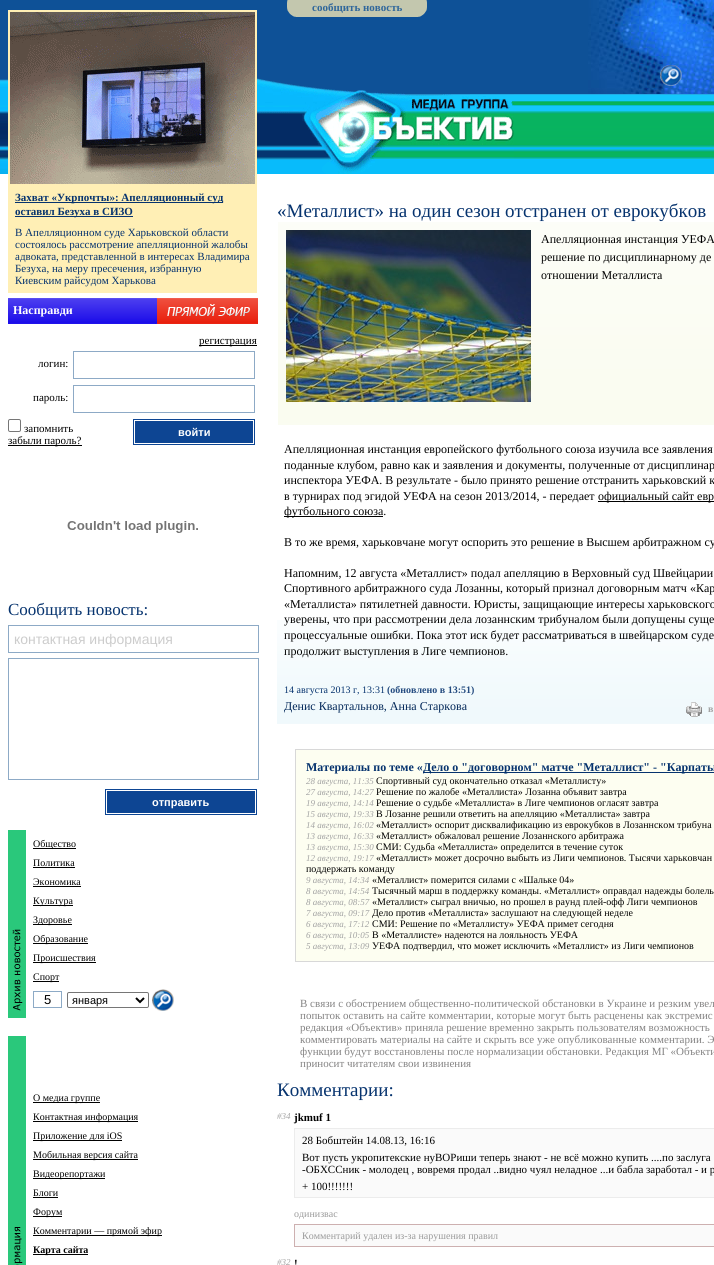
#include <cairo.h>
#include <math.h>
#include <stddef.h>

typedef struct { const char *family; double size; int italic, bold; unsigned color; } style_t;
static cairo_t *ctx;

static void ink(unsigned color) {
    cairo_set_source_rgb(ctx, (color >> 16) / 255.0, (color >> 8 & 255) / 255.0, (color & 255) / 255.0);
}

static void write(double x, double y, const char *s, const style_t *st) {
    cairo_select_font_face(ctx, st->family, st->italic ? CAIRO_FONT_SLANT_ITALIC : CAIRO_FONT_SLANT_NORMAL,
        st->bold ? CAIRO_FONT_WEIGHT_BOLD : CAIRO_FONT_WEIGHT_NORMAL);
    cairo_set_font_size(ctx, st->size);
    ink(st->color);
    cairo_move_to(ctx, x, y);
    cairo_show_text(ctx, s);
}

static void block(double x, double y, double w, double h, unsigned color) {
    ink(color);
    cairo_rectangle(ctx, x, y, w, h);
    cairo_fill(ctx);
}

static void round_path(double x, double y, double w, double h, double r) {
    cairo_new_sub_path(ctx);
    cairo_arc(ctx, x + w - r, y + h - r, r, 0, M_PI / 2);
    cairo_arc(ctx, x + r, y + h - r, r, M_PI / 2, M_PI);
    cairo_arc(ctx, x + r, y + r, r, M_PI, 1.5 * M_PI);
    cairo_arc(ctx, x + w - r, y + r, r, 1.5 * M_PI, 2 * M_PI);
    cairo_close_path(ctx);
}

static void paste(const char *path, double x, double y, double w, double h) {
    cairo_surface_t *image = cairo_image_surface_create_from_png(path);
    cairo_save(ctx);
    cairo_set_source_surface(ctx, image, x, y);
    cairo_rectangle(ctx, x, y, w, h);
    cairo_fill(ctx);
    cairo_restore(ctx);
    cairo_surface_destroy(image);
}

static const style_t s1 = {"Liberation Serif", 11, 0, 1, 0x30679b};
static const style_t s2 = {"Liberation Serif", 11, 0, 1, 0x06336e};
static const style_t s3 = {"Liberation Serif", 11, 0, 0, 0x06336e};
static const style_t s4 = {"Liberation Serif", 12, 0, 1, 0xffffff};
static const style_t s5 = {"Liberation Serif", 11, 0, 0, 0x000000};
static const style_t s6 = {"Liberation Sans", 11, 0, 1, 0xffffff};
static const style_t s7 = {"Liberation Serif", 17, 0, 0, 0x06336e};
static const style_t s8 = {"Liberation Sans", 14, 0, 0, 0xcccccc};
static const style_t s9 = {"Liberation Serif", 10, 0, 0, 0x000000};
static const style_t s10 = {"Liberation Sans", 13, 0, 0, 0x000000};
static const style_t s11 = {"Liberation Sans", 11, 0, 0, 0x000000};
static const style_t s12 = {"Liberation Serif", 10, 0, 1, 0x000000};
static const style_t s13 = {"Liberation Serif", 19, 0, 0, 0x06336e};
static const style_t s14 = {"Liberation Serif", 12, 0, 0, 0x000000};
static const style_t s15 = {"Liberation Serif", 10, 0, 0, 0x06336e};
static const style_t s16 = {"Liberation Serif", 10, 0, 1, 0x254c80};
static const style_t s17 = {"Liberation Serif", 12, 0, 0, 0x022758};
static const style_t s18 = {"Liberation Serif", 10, 0, 1, 0xa3a3a3};
static const style_t s19 = {"Liberation Serif", 12, 0, 1, 0x06336e};
static const style_t s20 = {"Liberation Serif", 9, 1, 0, 0xa3a3a3};
static const style_t s21 = {"Liberation Serif", 11, 0, 0, 0x848383};
static const style_t s22 = {"Liberation Serif", 11, 0, 1, 0x000000};
static const style_t s23 = {"Liberation Serif", 10, 0, 0, 0x9a9a9a};

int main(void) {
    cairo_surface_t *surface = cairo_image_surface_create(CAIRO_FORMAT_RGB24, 714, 1265);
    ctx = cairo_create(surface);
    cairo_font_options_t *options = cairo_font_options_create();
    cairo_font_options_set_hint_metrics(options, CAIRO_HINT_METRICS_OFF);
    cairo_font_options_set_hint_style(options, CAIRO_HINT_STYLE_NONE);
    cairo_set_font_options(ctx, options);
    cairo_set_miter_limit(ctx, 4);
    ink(0xffffff);
    cairo_paint(ctx);
    paste("pic1.png", 514, 0, 45, 174);
    block(0, 0, 257, 79, 0x0e5197);
    paste("pic2.png", 0, 79, 8, 111);
    block(8, 10, 249, 2, 0xffefb5);
    block(255, 10, 2, 180, 0xffefb5);
    block(8, 184, 249, 109, 0xffefb5);
    block(8, 10, 2, 180, 0xffefb5);
    paste("pic3.png", 10, 12, 245, 172);
    block(257, 0, 257, 78, 0x0e5197);
    paste("pic4.png", 257, 78, 257, 96);
    block(559, 0, 29, 94, 0x0e5197);
    paste("pic5.png", 559, 94, 155, 80);
    paste("pic6.png", 588, 0, 126, 94);
    paste("pic7.png", 660, 65, 22, 21);
    paste("pic8.png", 287, 0, 140, 17);
    write(312, 11, "сообщить новость", &s1);
    block(15, 202, 208, 1, 0x06336e);
    write(15, 201, "Захват «Укрпочты»: Апелляционный суд", &s2);
    block(15, 216, 118, 1, 0x06336e);
    write(15, 215, "оставил Безуха в СИЗО", &s2);
    write(15, 236, "В Апелляционном суде Харьковской области", &s3);
    write(15, 248, "состоялось рассмотрение апелляционной жалобы", &s3);
    write(15, 260, "адвоката, представленной в интересах Владимира", &s3);
    write(15, 272, "Безуха, на меру пресечения, избранную", &s3);
    write(15, 284, "Киевским райсудом Харькова", &s3);
    paste("pic9.png", 8, 298, 250, 26);
    write(13, 314, "Насправди", &s4);
    block(199, 345, 58, 1, 0x000000);
    write(199, 344, "регистрация", &s5);
    write(38, 367, "логин:", &s5);
    cairo_rectangle(ctx, 73.5, 351.5, 181, 27);
    ink(0x8daac6);
    cairo_set_line_width(ctx, 1);
    cairo_stroke(ctx);
    write(33, 401, "пароль:", &s5);
    cairo_rectangle(ctx, 73.5, 385.5, 181, 27);
    ink(0x8daac6);
    cairo_stroke(ctx);
    round_path(8.5, 419.5, 12, 12, 1.5);
    ink(0x767676);
    cairo_stroke(ctx);
    write(24, 432, "запомнить", &s5);
    block(8, 445, 74, 1, 0x000000);
    write(8, 444, "забыли пароль?", &s5);
    block(133, 419, 122, 26, 0x0d4593);
    cairo_rectangle(ctx, 134.5, 420.5, 119, 23);
    ink(0xffffff);
    cairo_stroke(ctx);
    write(178, 436, "войти", &s6);
    paste("pic10.png", 67, 521, 131, 12);
    write(8, 615, "Сообщить новость:", &s7);
    cairo_rectangle(ctx, 8.5, 625.5, 250, 27);
    ink(0x8daac6);
    cairo_stroke(ctx);
    write(14, 644, "контактная информация", &s8);
    cairo_rectangle(ctx, 8.5, 658.5, 250, 121);
    ink(0x8daac6);
    cairo_stroke(ctx);
    block(105, 789, 152, 26, 0x0d4593);
    cairo_rectangle(ctx, 106.5, 790.5, 149, 23);
    ink(0xffffff);
    cairo_stroke(ctx);
    write(152, 806, "отправить", &s6);
    paste("pic11.png", 8, 830, 18, 188);
    block(33, 848, 43, 1, 0x000000);
    write(33, 847, "Общество", &s9);
    write(33, 866, "Политика", &s9);
    block(33, 867, 42, 1, 0x000000);
    write(33, 885, "Экономика", &s9);
    block(33, 886, 48, 1, 0x000000);
    block(33, 905, 40, 1, 0x000000);
    write(33, 904, "Культура", &s9);
    block(33, 924, 39, 1, 0x000000);
    write(33, 923, "Здоровье", &s9);
    block(33, 943, 55, 1, 0x000000);
    write(33, 942, "Образование", &s9);
    block(33, 962, 63, 1, 0x000000);
    write(33, 961, "Происшествия", &s9);
    block(33, 981, 26, 1, 0x000000);
    write(33, 980, "Спорт", &s9);
    cairo_rectangle(ctx, 33.5, 991.5, 28, 16);
    ink(0x8daac6);
    cairo_stroke(ctx);
    write(44, 1004, "5", &s10);
    round_path(67.5, 992.5, 81, 15, 1.5);
    ink(0x767676);
    cairo_stroke(ctx);
    cairo_new_path(ctx);
    cairo_move_to(ctx, 136, 998);
    cairo_line_to(ctx, 140, 1002);
    cairo_line_to(ctx, 144, 998);
    ink(0x000000);
    cairo_set_line_width(ctx, 2);
    cairo_stroke(ctx);
    write(72, 1004, "января", &s11);
    paste("pic12.png", 152, 989, 22, 22);
    paste("pic13.png", 8, 1036, 18, 229);
    block(33, 1102, 67, 1, 0x000000);
    write(33, 1101, "О медиа группе", &s9);
    block(33, 1121, 105, 1, 0x000000);
    write(33, 1120, "Контактная информация", &s9);
    block(33, 1140, 89, 1, 0x000000);
    write(33, 1139, "Приложение для iOS", &s9);
    block(33, 1159, 105, 1, 0x000000);
    write(33, 1158, "Мобильная версия сайта", &s9);
    block(33, 1178, 72, 1, 0x000000);
    write(33, 1177, "Видеорепортажи", &s9);
    write(33, 1196, "Блоги", &s9);
    block(33, 1197, 25, 1, 0x000000);
    block(33, 1216, 29, 1, 0x000000);
    write(33, 1215, "Форум", &s9);
    block(33, 1235, 129, 1, 0x000000);
    write(33, 1234, "Комментарии — прямой эфир", &s9);
    block(33, 1254, 55, 1, 0x000000);
    write(33, 1253, "Карта сайта", &s12);
    write(277, 217, "«Металлист» на один сезон отстранен от еврокубков", &s13);
    paste("pic14.png", 278, 222, 436, 203);
    paste("pic15.png", 286, 230, 245, 172);
    write(541, 243, "Апелляционная инстанция УЕФА", &s14);
    write(541, 261, "решение по дисциплинарному де", &s14);
    write(541, 279, "отношении Металлиста", &s14);
    paste("pic16.png", 277, 620, 437, 104);
    write(284, 453, "Апелляционная инстанция европейского футбольного союза изучила все заявления", &s14);
    write(284, 469, "поданные клубом, равно как и заявления и документы, полученные от дисциплинар", &s14);
    write(284, 484, "инспектора УЕФА. В результате - было принято решение отстранить харьковский к", &s14);
    write(284, 500, "в турнирах под эгидой УЕФА на сезон 2013/2014, - передает", &s14);
    block(598, 501, 116, 1, 0x000000);
    write(598, 500, "официальный сайт евр", &s14);
    block(284, 516, 99, 1, 0x000000);
    write(284, 515, "футбольного союза.", &s14);
    write(284, 546, "В то же время, харьковчане могут оспорить это решение в Высшем арбитражном су", &s14);
    write(284, 577, "Напомним, 12 августа «Металлист» подал апелляцию в Верховный суд Швейцарии", &s14);
    write(284, 592, "Спортивного арбитражного суда Лозанны, который признал договорным матч «Кар", &s14);
    write(284, 608, "«Металлиста» пятилетней давности. Юристы, защищающие интересы харьковского", &s14);
    write(284, 623, "уверены, что при рассмотрении дела лозаннским трибуналом были допущены суще", &s14);
    write(284, 639, "процессуальные ошибки. Пока этот иск будет рассматриваться в швейцарском суде", &s14);
    write(284, 655, "продолжит выступления в Лиге чемпионов.", &s14);
    write(284, 693, "14 августа 2013 г, 13:31", &s15);
    write(387, 693, "(обновлено в 13:51)", &s16);
    write(284, 710, "Денис Квартальнов, Анна Старкова", &s17);
    paste("pic17.png", 686, 702, 16, 15);
    write(708, 712, "в", &s18);
    ink(0xfdfef1);
    cairo_rectangle(ctx, 295.5, 749.5, 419, 212);
    cairo_fill_preserve(ctx);
    ink(0xd8d8d8);
    cairo_set_line_width(ctx, 1);
    cairo_stroke(ctx);
    write(306, 771, "Материалы по теме «", &s19);
    block(423, 772, 291, 1, 0x06336e);
    write(423, 771, "Дело о \"договорном\" матче \"Металлист\" - \"Карпаты", &s19);
    write(306, 784, "28 августа, 11:35", &s20);
    write(376, 784, "Спортивный суд окончательно отказал «Металлисту»", &s9);
    write(306, 795, "27 августа, 14:27", &s20);
    write(376, 795, "Решение по жалобе «Металлиста» Лозанна объявит завтра", &s9);
    write(306, 806, "19 августа, 14:14", &s20);
    write(376, 806, "Решение о судьбе «Металлиста» в Лиге чемпионов огласят завтра", &s9);
    write(306, 817, "15 августа, 19:33", &s20);
    write(376, 817, "В Лозанне решили ответить на апелляцию «Металлиста» завтра", &s9);
    write(306, 828, "14 августа, 16:02", &s20);
    write(376, 828, "«Металлист» оспорит дисквалификацию из еврокубков в Лозаннском трибуна", &s9);
    write(306, 839, "13 августа, 16:33", &s20);
    write(376, 839, "«Металлист» обжаловал решение Лозаннского арбитража", &s9);
    write(306, 850, "13 августа, 15:30", &s20);
    write(376, 850, "СМИ: Судьба «Металлиста» определится в течение суток", &s9);
    write(306, 861, "12 августа, 19:17", &s20);
    write(376, 861, "«Металлист» может досрочно выбыть из Лиги чемпионов. Тысячи харьковчан", &s9);
    write(306, 872, "поддержать команду", &s9);
    write(306, 883, "9 августа, 14:34", &s20);
    write(372, 883, "«Металлист» померится силами с «Шальке 04»", &s9);
    write(306, 894, "8 августа, 14:54", &s20);
    write(372, 894, "Тысячный марш в поддержку команды. «Металлист» оправдал надежды болель", &s9);
    write(306, 905, "8 августа, 08:57", &s20);
    write(372, 905, "«Металлист» сыграл вничью, но прошел в раунд плей-офф Лиги чемпионов", &s9);
    write(306, 916, "7 августа, 09:17", &s20);
    write(372, 916, "Дело против «Металлиста» заслушают на следующей неделе", &s9);
    write(306, 927, "6 августа, 17:12", &s20);
    write(372, 927, "СМИ: Решение по «Металлисту» УЕФА примет сегодня", &s9);
    write(306, 938, "6 августа, 10:05", &s20);
    write(372, 938, "В «Металлисте» надеются на лояльность УЕФА", &s9);
    write(306, 949, "5 августа, 13:09", &s20);
    write(372, 949, "УЕФА подтвердил, что может исключить «Металлист» из Лиги чемпионов", &s9);
    write(300, 1007, "В связи с обострением общественно-политической обстановки в Украине и резким увел", &s21);
    write(300, 1019, "попыток оставить на сайте комментарии, которые могут быть расценены как экстремис", &s21);
    write(300, 1031, "редакция «Объектив» приняла решение временно закрыть пользователям возможность", &s21);
    write(300, 1043, "комментировать материалы на сайте и скрыть все уже опубликованные комментарии. Э", &s21);
    write(300, 1055, "функции будут восстановлены после нормализации обстановки. Редакция МГ «Объекти", &s21);
    write(300, 1067, "приносит читателям свои извинения", &s21);
    write(277, 1096, "Комментарии:", &s13);
    write(277, 1119, "#34", &s20);
    write(294, 1121, "jkmuf 1", &s22);
    ink(0xfafafa);
    cairo_rectangle(ctx, 294.5, 1128.5, 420, 69);
    cairo_fill_preserve(ctx);
    ink(0xececec);
    cairo_stroke(ctx);
    write(302, 1144, "28 Бобштейн 14.08.13, 16:16", &s5);
    write(302, 1161, "Вот пусть укропитекские нуВОРиши теперь знают - не всё можно купить ....по заслуга", &s5);
    write(302, 1173, "-ОБХССник - молодец , вовремя продал ..видно чуял неладное ...и бабла заработал - и р", &s5);
    write(302, 1190, "+ 100!!!!!!!", &s5);
    write(294, 1217, "одинизвас", &s23);
    ink(0xfafafa);
    cairo_rectangle(ctx, 294.5, 1224.5, 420, 22);
    cairo_fill_preserve(ctx);
    ink(0xcdb0b0);
    cairo_stroke(ctx);
    write(302, 1239, "Комментарий удален из-за нарушения правил", &s23);
    write(277, 1265, "#32", &s20);
    write(294, 1267, "!", &s22);
    cairo_surface_write_to_png(surface, "screenshot.png");
    cairo_font_options_destroy(options);
    cairo_destroy(ctx);
    cairo_surface_destroy(surface);
    return 0;
}
